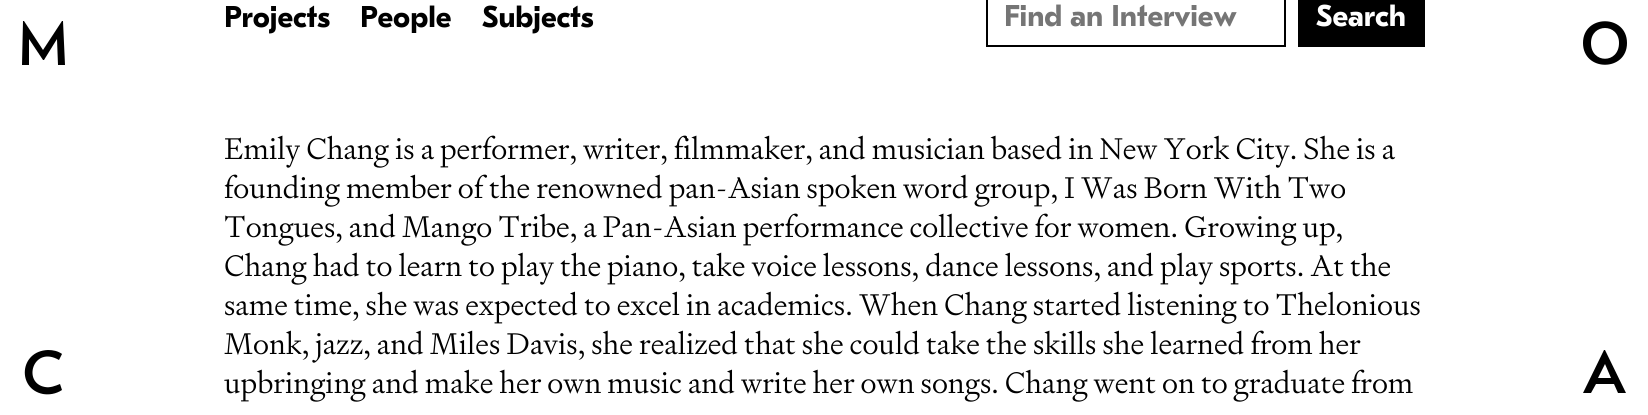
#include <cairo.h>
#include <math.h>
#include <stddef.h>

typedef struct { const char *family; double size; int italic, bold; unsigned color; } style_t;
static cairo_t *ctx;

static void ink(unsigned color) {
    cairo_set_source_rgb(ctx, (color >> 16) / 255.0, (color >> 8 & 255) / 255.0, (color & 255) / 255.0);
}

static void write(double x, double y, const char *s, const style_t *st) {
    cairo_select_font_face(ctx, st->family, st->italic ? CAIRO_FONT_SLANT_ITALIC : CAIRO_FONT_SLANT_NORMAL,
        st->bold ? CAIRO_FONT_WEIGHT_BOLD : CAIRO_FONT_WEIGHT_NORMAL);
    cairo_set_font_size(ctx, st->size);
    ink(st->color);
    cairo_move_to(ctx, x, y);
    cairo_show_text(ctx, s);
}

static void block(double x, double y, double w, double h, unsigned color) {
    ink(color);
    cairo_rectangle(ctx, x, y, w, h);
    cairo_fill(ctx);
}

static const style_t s1 = {"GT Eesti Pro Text", 30, 0, 1, 0x000000};
static const style_t s2 = {"GT Eesti Pro Text", 30, 0, 1, 0x757575};
static const style_t s3 = {"GT Eesti Pro Text", 30, 0, 1, 0xffffff};
static const style_t s4 = {"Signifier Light", 30, 0, 0, 0x000000};

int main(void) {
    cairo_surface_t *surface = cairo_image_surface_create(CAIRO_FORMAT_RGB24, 1648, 415);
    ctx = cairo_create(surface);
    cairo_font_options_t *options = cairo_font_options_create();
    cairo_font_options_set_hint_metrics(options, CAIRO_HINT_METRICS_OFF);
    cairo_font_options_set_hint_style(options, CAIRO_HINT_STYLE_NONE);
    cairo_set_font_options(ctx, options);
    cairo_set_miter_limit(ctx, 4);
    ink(0xffffff);
    cairo_paint(ctx);
    write(224, 27, "Projects", &s1);
    write(360, 27, "People", &s1);
    write(482, 27, "Subjects", &s1);
    cairo_rectangle(ctx, 987, -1, 298, 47);
    cairo_stroke(ctx);
    write(1004, 26, "Find an Interview", &s2);
    block(1298, 0, 127, 47, 0x000000);
    write(1316, 26, "Search", &s3);
    write(224, 159, "Emily Chang is a performer, writer, filmmaker, and musician based in New York City. She is a", &s4);
    write(224, 198, "founding member of the renowned pan-Asian spoken word group, I Was Born With Two", &s4);
    write(224, 237, "Tongues, and Mango Tribe, a Pan-Asian performance collective for women. Growing up,", &s4);
    write(224, 276, "Chang had to learn to play the piano, take voice lessons, dance lessons, and play sports. At the", &s4);
    write(224, 315, "same time, she was expected to excel in academics. When Chang started listening to Thelonious", &s4);
    write(224, 354, "Monk, jazz, and Miles Davis, she realized that she could take the skills she learned from her", &s4);
    write(224, 393, "upbringing and make her own music and write her own songs. Chang went on to graduate from", &s4);
    cairo_new_path(ctx);
    cairo_move_to(ctx, 65, 65);
    cairo_line_to(ctx, 63, 21);
    cairo_line_to(ctx, 62, 21);
    cairo_line_to(ctx, 43, 50);
    cairo_line_to(ctx, 24, 21);
    cairo_line_to(ctx, 23, 21);
    cairo_line_to(ctx, 22, 65);
    cairo_line_to(ctx, 29, 65);
    cairo_line_to(ctx, 29, 39);
    cairo_line_to(ctx, 43, 60);
    cairo_line_to(ctx, 44, 60);
    cairo_line_to(ctx, 57, 39);
    cairo_line_to(ctx, 58, 65);
    cairo_close_path(ctx);
    cairo_fill(ctx);
    cairo_new_path(ctx);
    cairo_move_to(ctx, 1619, 43);
    cairo_curve_to(ctx, 1619, 64, 1591, 64, 1591, 43);
    cairo_curve_to(ctx, 1591, 23, 1619, 23, 1619, 43);
    cairo_move_to(ctx, 1627, 43);
    cairo_curve_to(ctx, 1627, 14, 1583, 14, 1583, 43);
    cairo_curve_to(ctx, 1583, 72, 1627, 72, 1627, 43);
    cairo_fill(ctx);
    cairo_new_path(ctx);
    cairo_move_to(ctx, 62, 390);
    cairo_line_to(ctx, 60, 384);
    cairo_curve_to(ctx, 55, 386, 50, 388, 45, 387);
    cairo_curve_to(ctx, 22, 383, 33, 345, 59, 360);
    cairo_line_to(ctx, 62, 354);
    cairo_curve_to(ctx, 58, 351, 53, 350, 48, 350);
    cairo_curve_to(ctx, 19, 351, 17, 389, 43, 394);
    cairo_curve_to(ctx, 49, 395, 56, 394, 62, 390);
    cairo_fill(ctx);
    cairo_new_path(ctx);
    cairo_move_to(ctx, 1611, 378);
    cairo_line_to(ctx, 1598, 378);
    cairo_line_to(ctx, 1605, 364);
    cairo_close_path(ctx);
    cairo_move_to(ctx, 1626, 393);
    cairo_line_to(ctx, 1605, 350);
    cairo_line_to(ctx, 1604, 350);
    cairo_line_to(ctx, 1583, 393);
    cairo_line_to(ctx, 1591, 393);
    cairo_line_to(ctx, 1596, 384);
    cairo_line_to(ctx, 1614, 384);
    cairo_line_to(ctx, 1618, 393);
    cairo_close_path(ctx);
    cairo_fill(ctx);
    cairo_surface_write_to_png(surface, "screenshot.png");
    cairo_font_options_destroy(options);
    cairo_destroy(ctx);
    cairo_surface_destroy(surface);
    return 0;
}
